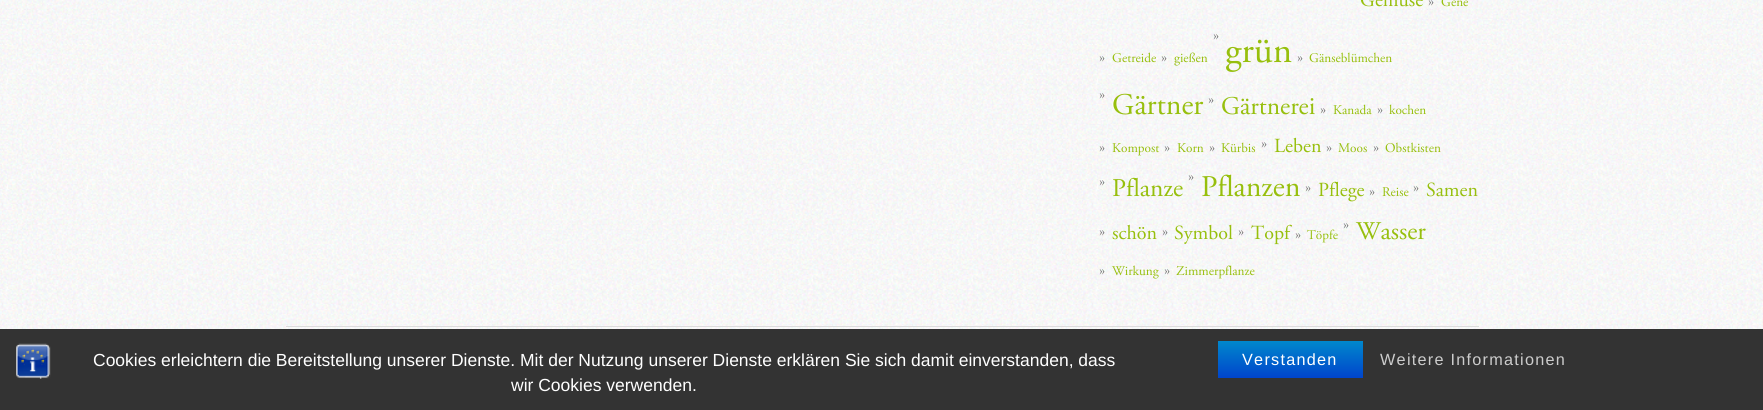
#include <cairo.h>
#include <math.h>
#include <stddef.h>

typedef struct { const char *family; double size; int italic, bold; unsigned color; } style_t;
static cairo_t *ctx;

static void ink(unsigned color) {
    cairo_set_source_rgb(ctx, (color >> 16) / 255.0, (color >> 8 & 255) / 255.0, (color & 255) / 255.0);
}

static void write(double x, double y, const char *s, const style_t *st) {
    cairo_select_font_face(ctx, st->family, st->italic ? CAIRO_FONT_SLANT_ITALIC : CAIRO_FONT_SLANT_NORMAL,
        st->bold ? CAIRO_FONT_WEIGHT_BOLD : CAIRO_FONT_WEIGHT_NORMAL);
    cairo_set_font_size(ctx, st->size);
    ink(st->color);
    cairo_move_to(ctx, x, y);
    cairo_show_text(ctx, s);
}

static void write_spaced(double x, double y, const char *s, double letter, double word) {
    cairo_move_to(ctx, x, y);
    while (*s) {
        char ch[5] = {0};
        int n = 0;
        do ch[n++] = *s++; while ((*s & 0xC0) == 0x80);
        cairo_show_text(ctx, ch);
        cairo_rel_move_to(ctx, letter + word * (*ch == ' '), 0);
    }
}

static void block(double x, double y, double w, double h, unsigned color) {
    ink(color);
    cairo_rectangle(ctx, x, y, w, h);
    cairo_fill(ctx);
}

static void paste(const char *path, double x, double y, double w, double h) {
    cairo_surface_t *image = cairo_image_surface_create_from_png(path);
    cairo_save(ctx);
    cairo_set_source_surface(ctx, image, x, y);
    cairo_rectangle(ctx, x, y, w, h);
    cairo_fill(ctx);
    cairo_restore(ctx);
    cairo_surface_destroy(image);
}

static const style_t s1 = {"Adobe Garamond", 20, 0, 0, 0x97bf0d};
static const style_t s2 = {"Adobe Garamond", 16.25, 0, 0, 0x777777};
static const style_t s3 = {"Adobe Garamond", 13.25, 0, 0, 0x97bf0d};
static const style_t s4 = {"Adobe Garamond", 37, 0, 0, 0x97bf0d};
static const style_t s5 = {"Adobe Garamond", 30, 0, 0, 0x97bf0d};
static const style_t s6 = {"Adobe Garamond", 25.5, 0, 0, 0x97bf0d};
static const style_t s7 = {"Liberation Sans", 17.5, 0, 0, 0xffffff};

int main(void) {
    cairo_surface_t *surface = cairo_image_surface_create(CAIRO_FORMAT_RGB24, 1763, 410);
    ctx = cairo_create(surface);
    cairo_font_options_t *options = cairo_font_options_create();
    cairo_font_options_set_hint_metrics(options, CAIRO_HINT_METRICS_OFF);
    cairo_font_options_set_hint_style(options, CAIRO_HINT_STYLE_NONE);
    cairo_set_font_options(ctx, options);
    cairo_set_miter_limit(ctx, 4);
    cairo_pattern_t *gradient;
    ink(0xffffff);
    cairo_paint(ctx);
    paste("pic1.png", 0, 0, 1763, 329);
    write(1360, 6, "Gemüse", &s1);
    write(1428, 6, "»", &s2);
    write(1441, 6, "Gene", &s3);
    write(1099, 62, "»", &s2);
    write(1112, 62, "Getreide", &s3);
    write(1161, 62, "»", &s2);
    write(1174, 62, "gießen", &s3);
    write(1213, 40, "»", &s2);
    write(1225, 62, "grün", &s4);
    write(1297, 62, "»", &s2);
    write(1309, 62, "Gänseblümchen", &s3);
    write(1099, 99, "»", &s2);
    write(1112, 114, "Gärtner", &s5);
    write(1208, 104, "»", &s2);
    write(1221, 114, "Gärtnerei", &s6);
    write(1320, 114, "»", &s2);
    write(1333, 114, "Kanada", &s3);
    write(1377, 114, "»", &s2);
    write(1389, 114, "kochen", &s3);
    write(1099, 152, "»", &s2);
    write(1112, 152, "Kompost", &s3);
    write(1164, 152, "»", &s2);
    write(1177, 152, "Korn", &s3);
    write(1209, 152, "»", &s2);
    write(1221, 152, "Kürbis", &s3);
    write(1261, 148, "»", &s2);
    write(1274, 152, "Leben", &s1);
    write(1326, 152, "»", &s2);
    write(1338, 152, "Moos", &s3);
    write(1373, 152, "»", &s2);
    write(1385, 152, "Obstkisten", &s3);
    write(1099, 186, "»", &s2);
    write(1112, 196, "Pflanze", &s6);
    write(1188, 181, "»", &s2);
    write(1201, 196, "Pflanzen", &s5);
    write(1305, 192, "»", &s2);
    write(1318, 196, "Pflege", &s1);
    write(1369, 196, "»", &s2);
    write(1382, 196, "Reise", &s3);
    write(1413, 192, "»", &s2);
    write(1426, 196, "Samen", &s1);
    write(1099, 236, "»", &s2);
    write(1112, 239, "schön", &s1);
    write(1162, 236, "»", &s2);
    write(1174, 239, "Symbol", &s1);
    write(1238, 236, "»", &s2);
    write(1251, 239, "Topf", &s1);
    write(1295, 239, "»", &s2);
    write(1307, 239, "Töpfe", &s3);
    write(1343, 229, "»", &s2);
    write(1356, 239, "Wasser", &s6);
    write(1099, 275, "»", &s2);
    write(1112, 275, "Wirkung", &s3);
    write(1164, 275, "»", &s2);
    write(1176, 275, "Zimmerpflanze", &s3);
    block(286, 326, 1193, 1, 0xdddddd);
    block(0, 329, 1763, 81, 0x333333);
    paste("pic2.png", 16, 343, 35, 36);
    write(93, 366, "Cookies erleichtern die Bereitstellung unserer Dienste. Mit der Nutzung unserer Dienste erklären Sie sich damit einverstanden, dass", &s7);
    write(511, 391, "wir Cookies verwenden.", &s7);
    gradient = cairo_pattern_create_linear(1290, 341, 1290, 378);
    cairo_pattern_add_color_stop_rgba(gradient, 0, 0, 0.533, 0.8, 1);
    cairo_pattern_add_color_stop_rgba(gradient, 1, 0, 0.267, 0.8, 1);
    cairo_set_source(ctx, gradient);
    cairo_pattern_destroy(gradient);
    cairo_rectangle(ctx, 1218, 341, 145, 37);
    cairo_fill(ctx);
    cairo_set_font_size(ctx, 16.25);
    ink(0xffffff);
    write_spaced(1242, 365, "Verstanden", 1.25, 0);
    ink(0xcccccc);
    write_spaced(1380, 365, "Weitere Informationen", 1.25, 0);
    cairo_surface_write_to_png(surface, "screenshot.png");
    cairo_font_options_destroy(options);
    cairo_destroy(ctx);
    cairo_surface_destroy(surface);
    return 0;
}
